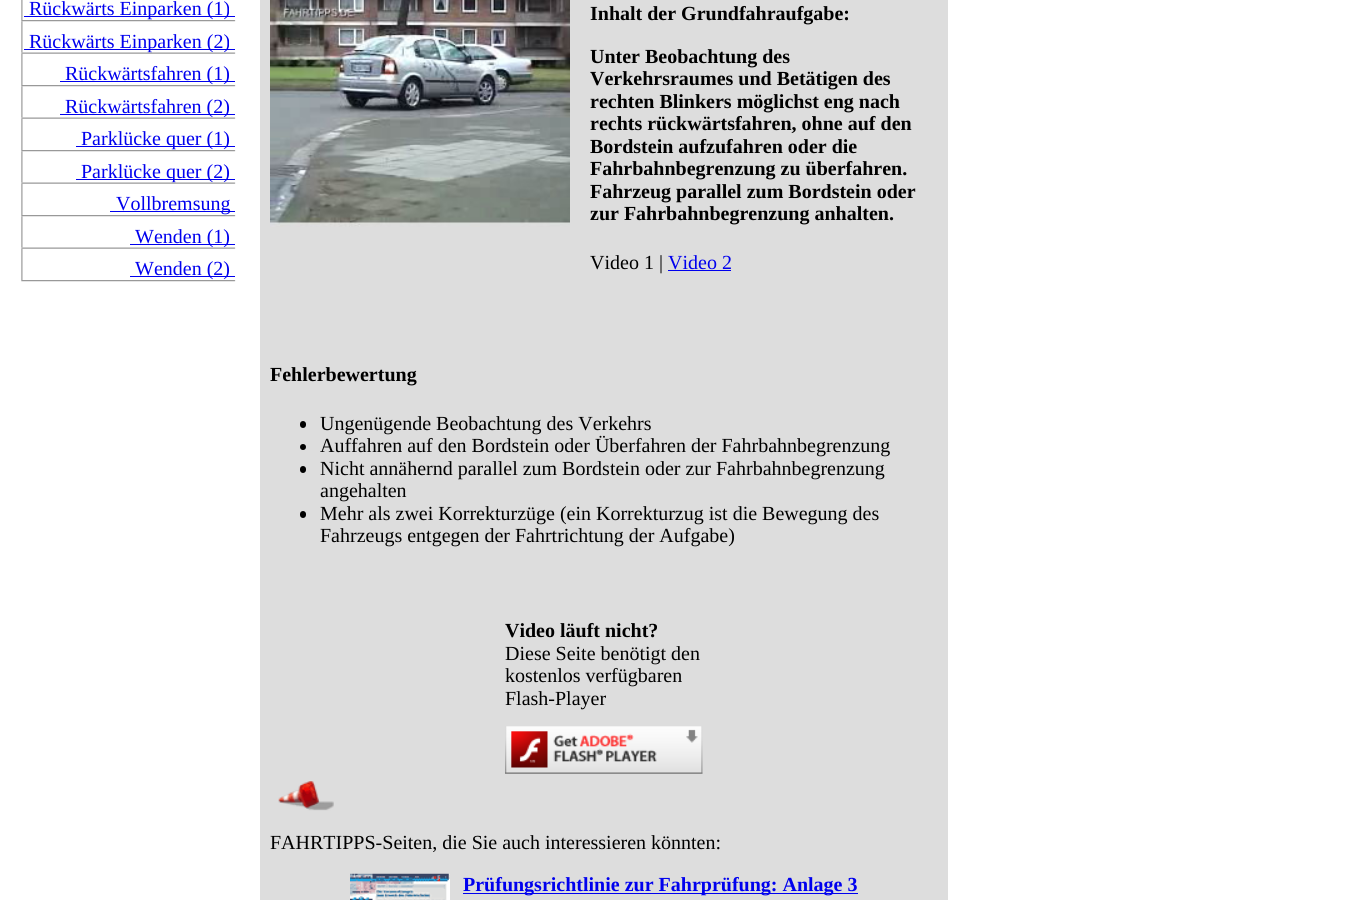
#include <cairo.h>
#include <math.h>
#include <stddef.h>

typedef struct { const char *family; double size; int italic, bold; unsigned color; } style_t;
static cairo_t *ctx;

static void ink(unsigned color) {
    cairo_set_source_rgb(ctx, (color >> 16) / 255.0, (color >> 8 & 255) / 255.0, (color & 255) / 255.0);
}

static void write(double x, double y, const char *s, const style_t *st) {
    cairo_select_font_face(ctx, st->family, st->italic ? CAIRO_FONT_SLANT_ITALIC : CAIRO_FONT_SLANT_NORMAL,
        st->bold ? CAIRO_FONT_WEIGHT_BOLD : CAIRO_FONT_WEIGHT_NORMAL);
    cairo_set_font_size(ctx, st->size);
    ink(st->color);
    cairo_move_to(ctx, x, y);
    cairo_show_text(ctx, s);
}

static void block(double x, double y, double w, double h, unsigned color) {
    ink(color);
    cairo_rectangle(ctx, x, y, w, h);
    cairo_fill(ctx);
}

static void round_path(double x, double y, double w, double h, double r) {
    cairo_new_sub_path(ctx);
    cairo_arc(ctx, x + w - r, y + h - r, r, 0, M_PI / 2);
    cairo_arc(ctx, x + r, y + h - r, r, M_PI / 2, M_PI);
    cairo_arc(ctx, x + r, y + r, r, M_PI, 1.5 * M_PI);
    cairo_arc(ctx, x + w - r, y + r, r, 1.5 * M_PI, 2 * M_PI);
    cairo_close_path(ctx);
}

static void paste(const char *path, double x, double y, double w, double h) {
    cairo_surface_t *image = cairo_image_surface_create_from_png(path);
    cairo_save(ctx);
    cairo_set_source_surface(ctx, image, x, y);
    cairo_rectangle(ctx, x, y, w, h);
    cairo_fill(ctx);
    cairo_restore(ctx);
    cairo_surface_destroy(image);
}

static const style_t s1 = {"Liberation Serif", 20, 0, 0, 0x0000ee};
static const style_t s2 = {"Liberation Serif", 20, 0, 1, 0x000000};
static const style_t s3 = {"Liberation Serif", 20, 0, 0, 0x000000};
static const style_t s4 = {"Liberation Serif", 20, 0, 1, 0x0000ee};

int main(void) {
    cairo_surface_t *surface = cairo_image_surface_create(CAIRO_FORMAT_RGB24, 1348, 900);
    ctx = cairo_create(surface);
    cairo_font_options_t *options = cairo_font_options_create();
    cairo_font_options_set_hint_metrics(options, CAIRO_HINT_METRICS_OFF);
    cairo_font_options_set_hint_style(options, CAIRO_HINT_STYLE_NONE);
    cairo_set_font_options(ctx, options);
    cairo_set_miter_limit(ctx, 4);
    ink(0xffffff);
    cairo_paint(ctx);
    paste("pic1.png", 21, 0, 2, 20);
    block(24, 16, 211, 1, 0x0000ee);
    write(29, 15, "Rückwärts Einparken (1)", &s1);
    paste("pic2.png", 21, 20, 215, 2);
    paste("pic3.png", 21, 21, 2, 32);
    block(24, 49, 211, 1, 0x0000ee);
    write(29, 48, "Rückwärts Einparken (2)", &s1);
    paste("pic4.png", 21, 52, 215, 2);
    paste("pic5.png", 21, 53, 2, 32);
    block(60, 81, 175, 1, 0x0000ee);
    write(65, 80, "Rückwärtsfahren (1)", &s1);
    paste("pic2.png", 21, 85, 215, 2);
    paste("pic3.png", 21, 86, 2, 32);
    block(60, 114, 175, 1, 0x0000ee);
    write(65, 113, "Rückwärtsfahren (2)", &s1);
    paste("pic6.png", 21, 117, 215, 2);
    paste("pic5.png", 21, 118, 2, 32);
    block(76, 146, 159, 1, 0x0000ee);
    write(81, 145, "Parklücke quer (1)", &s1);
    paste("pic2.png", 21, 150, 215, 2);
    paste("pic3.png", 21, 151, 2, 32);
    block(76, 179, 159, 1, 0x0000ee);
    write(81, 178, "Parklücke quer (2)", &s1);
    paste("pic7.png", 21, 182, 215, 2);
    paste("pic5.png", 21, 183, 2, 32);
    block(110, 211, 125, 1, 0x0000ee);
    write(116, 210, "Vollbremsung", &s1);
    paste("pic2.png", 21, 215, 215, 2);
    paste("pic3.png", 21, 216, 2, 32);
    block(130, 244, 105, 1, 0x0000ee);
    write(135, 243, "Wenden (1)", &s1);
    paste("pic6.png", 21, 247, 215, 2);
    paste("pic5.png", 21, 248, 2, 32);
    block(130, 276, 105, 1, 0x0000ee);
    write(135, 275, "Wenden (2)", &s1);
    paste("pic2.png", 21, 280, 215, 2);
    block(260, 0, 688, 900, 0xdddddd);
    paste("pic8.png", 270, 0, 300, 227);
    write(590, 20, "Inhalt der Grundfahraufgabe:", &s2);
    write(590, 63, "Unter Beobachtung des", &s2);
    write(590, 85, "Verkehrsraumes und Betätigen des", &s2);
    write(590, 108, "rechten Blinkers möglichst eng nach", &s2);
    write(590, 130, "rechts rückwärtsfahren, ohne auf den", &s2);
    write(590, 153, "Bordstein aufzufahren oder die", &s2);
    write(590, 175, "Fahrbahnbegrenzung zu überfahren.", &s2);
    write(590, 198, "Fahrzeug parallel zum Bordstein oder", &s2);
    write(590, 220, "zur Fahrbahnbegrenzung anhalten.", &s2);
    write(590, 269, "Video 1 |", &s3);
    write(668, 269, "Video 2", &s1);
    block(668, 270, 63, 1, 0x0000ee);
    write(270, 381, "Fehlerbewertung", &s2);
    round_path(300, 421, 6, 7, 3);
    cairo_fill(ctx);
    write(320, 430, "Ungenügende Beobachtung des Verkehrs", &s3);
    cairo_new_path(ctx);
    cairo_arc(ctx, 303, 447, 3, 0, 2 * M_PI);
    cairo_fill(ctx);
    write(320, 452, "Auffahren auf den Bordstein oder Überfahren der Fahrbahnbegrenzung", &s3);
    round_path(300, 466, 6, 7, 3);
    cairo_fill(ctx);
    write(320, 475, "Nicht annähernd parallel zum Bordstein oder zur Fahrbahnbegrenzung", &s3);
    write(320, 497, "angehalten", &s3);
    round_path(300, 511, 6, 7, 3);
    cairo_fill(ctx);
    write(320, 520, "Mehr als zwei Korrekturzüge (ein Korrekturzug ist die Bewegung des", &s3);
    write(320, 542, "Fahrzeugs entgegen der Fahrtrichtung der Aufgabe)", &s3);
    write(505, 637, "Video läuft nicht?", &s2);
    write(505, 660, "Diese Seite benötigt den", &s3);
    write(505, 682, "kostenlos verfügbaren", &s3);
    write(505, 705, "Flash-Player", &s3);
    paste("pic9.png", 505, 726, 198, 48);
    paste("pic10.png", 278, 781, 56, 30);
    write(270, 849, "FAHRTIPPS-Seiten, die Sie auch interessieren könnten:", &s3);
    paste("pic11.png", 350, 873, 100, 27);
    block(463, 893, 395, 1, 0x0000ee);
    write(463, 891, "Prüfungsrichtlinie zur Fahrprüfung: Anlage 3", &s4);
    cairo_surface_write_to_png(surface, "screenshot.png");
    cairo_font_options_destroy(options);
    cairo_destroy(ctx);
    cairo_surface_destroy(surface);
    return 0;
}
